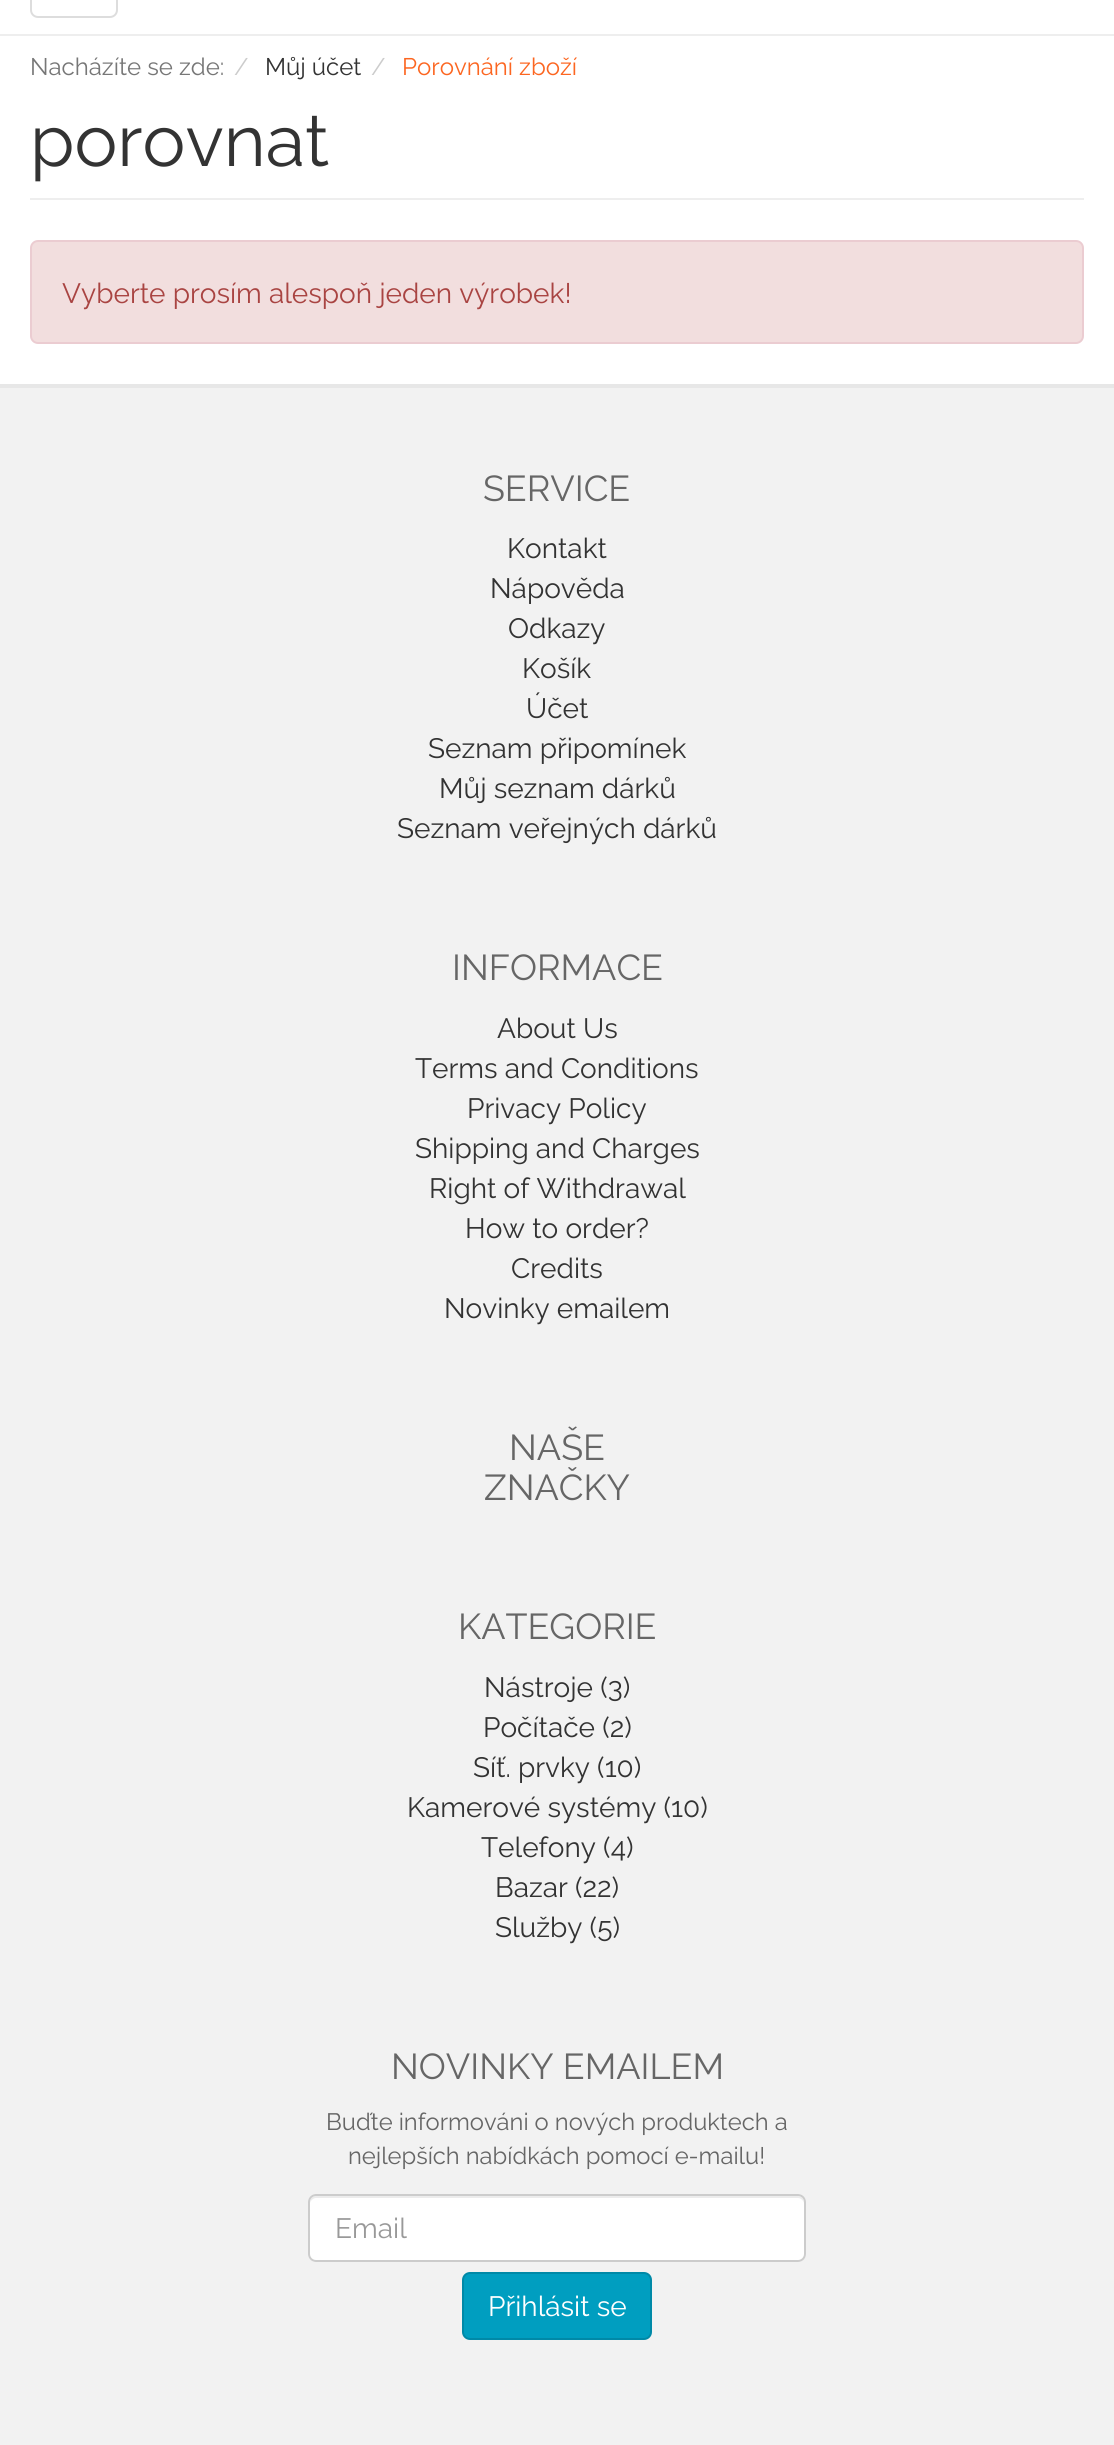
#include <cairo.h>
#include <math.h>
#include <stddef.h>

typedef struct { const char *family; double size; int italic, bold; unsigned color; } style_t;
static cairo_t *ctx;

static void ink(unsigned color) {
    cairo_set_source_rgb(ctx, (color >> 16) / 255.0, (color >> 8 & 255) / 255.0, (color & 255) / 255.0);
}

static void write(double x, double y, const char *s, const style_t *st) {
    cairo_select_font_face(ctx, st->family, st->italic ? CAIRO_FONT_SLANT_ITALIC : CAIRO_FONT_SLANT_NORMAL,
        st->bold ? CAIRO_FONT_WEIGHT_BOLD : CAIRO_FONT_WEIGHT_NORMAL);
    cairo_set_font_size(ctx, st->size);
    ink(st->color);
    cairo_move_to(ctx, x, y);
    cairo_show_text(ctx, s);
}

static void block(double x, double y, double w, double h, unsigned color) {
    ink(color);
    cairo_rectangle(ctx, x, y, w, h);
    cairo_fill(ctx);
}

static void round_path(double x, double y, double w, double h, double r) {
    cairo_new_sub_path(ctx);
    cairo_arc(ctx, x + w - r, y + h - r, r, 0, M_PI / 2);
    cairo_arc(ctx, x + r, y + h - r, r, M_PI / 2, M_PI);
    cairo_arc(ctx, x + r, y + r, r, M_PI, 1.5 * M_PI);
    cairo_arc(ctx, x + w - r, y + r, r, 1.5 * M_PI, 2 * M_PI);
    cairo_close_path(ctx);
}

static const style_t s1 = {"Raleway", 24, 0, 0, 0x777777};
static const style_t s2 = {"Raleway", 24, 0, 0, 0xcccccc};
static const style_t s3 = {"Raleway", 24, 0, 0, 0x333333};
static const style_t s4 = {"Raleway", 24, 0, 0, 0xfc6621};
static const style_t s5 = {"Raleway", 72, 0, 0, 0x333333};
static const style_t s6 = {"Raleway", 28, 0, 0, 0xa94442};
static const style_t s7 = {"Raleway", 36, 0, 0, 0x666666};
static const style_t s8 = {"Raleway", 28, 0, 0, 0x333333};
static const style_t s9 = {"Raleway", 23.75, 0, 0, 0x666666};
static const style_t s10 = {"Raleway", 28, 0, 0, 0x999999};
static const style_t s11 = {"Raleway", 28, 0, 0, 0xffffff};

int main(void) {
    cairo_surface_t *surface = cairo_image_surface_create(CAIRO_FORMAT_RGB24, 1114, 2445);
    ctx = cairo_create(surface);
    cairo_font_options_t *options = cairo_font_options_create();
    cairo_font_options_set_hint_metrics(options, CAIRO_HINT_METRICS_OFF);
    cairo_font_options_set_hint_style(options, CAIRO_HINT_STYLE_NONE);
    cairo_set_font_options(ctx, options);
    cairo_set_miter_limit(ctx, 4);
    ink(0xffffff);
    cairo_paint(ctx);
    block(0, 34, 1114, 2, 0xeeeeee);
    round_path(31, -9, 86, 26, 7);
    ink(0xdddddd);
    cairo_stroke(ctx);
    write(30, 75, "Nacházíte se zde:", &s1);
    write(234, 75, "/", &s2);
    write(265, 75, "Můj účet", &s3);
    write(371, 75, "/", &s2);
    write(402, 75, "Porovnání zboží", &s4);
    block(30, 198, 1054, 2, 0xeeeeee);
    write(30, 166, "porovnat", &s5);
    ink(0xf2dede);
    round_path(31, 241, 1052, 102, 7);
    cairo_fill_preserve(ctx);
    ink(0xebccd1);
    cairo_stroke(ctx);
    write(62, 303, "Vyberte prosím alespoň jeden výrobek!", &s6);
    block(0, 388, 1114, 2057, 0xf2f2f2);
    block(0, 384, 1114, 4, 0xe7e7e7);
    write(483, 501, "SERVICE", &s7);
    write(507, 558, "Kontakt", &s8);
    write(490, 598, "Nápověda", &s8);
    write(508, 638, "Odkazy", &s8);
    write(522, 678, "Košík", &s8);
    write(526, 718, "Účet", &s8);
    write(428, 758, "Seznam připomínek", &s8);
    write(439, 798, "Můj seznam dárků", &s8);
    write(397, 838, "Seznam veřejných dárků", &s8);
    write(452, 980, "INFORMACE", &s7);
    write(497, 1038, "About Us", &s8);
    write(415, 1078, "Terms and Conditions", &s8);
    write(467, 1118, "Privacy Policy", &s8);
    write(415, 1158, "Shipping and Charges", &s8);
    write(429, 1198, "Right of Withdrawal", &s8);
    write(465, 1238, "How to order?", &s8);
    write(511, 1278, "Credits", &s8);
    write(444, 1318, "Novinky emailem", &s8);
    write(509, 1460, "NAŠE", &s7);
    write(484, 1500, "ZNAČKY", &s7);
    write(458, 1639, "KATEGORIE", &s7);
    write(484, 1697, "Nástroje (3)", &s8);
    write(483, 1737, "Počítače (2)", &s8);
    write(473, 1777, "Síť. prvky (10)", &s8);
    write(407, 1817, "Kamerové systémy (10)", &s8);
    write(481, 1857, "Telefony (4)", &s8);
    write(495, 1897, "Bazar (22)", &s8);
    write(495, 1937, "Služby (5)", &s8);
    write(391, 2079, "NOVINKY EMAILEM", &s7);
    write(326, 2130, "Buďte informováni o nových produktech a", &s9);
    write(348, 2164, "nejlepších nabídkách pomocí e-mailu!", &s9);
    ink(0xffffff);
    round_path(308, 2194, 498, 68, 8);
    cairo_fill(ctx);
    ink(0xececec);
    cairo_new_path(ctx);
    cairo_move_to(ctx, 316, 2198);
    cairo_line_to(ctx, 798, 2198);
    cairo_curve_to(ctx, 801, 2198, 804, 2201, 804, 2204);
    cairo_curve_to(ctx, 804, 2200, 803, 2196, 798, 2196);
    cairo_line_to(ctx, 316, 2196);
    cairo_curve_to(ctx, 311, 2196, 310, 2200, 310, 2204);
    cairo_curve_to(ctx, 310, 2201, 313, 2198, 316, 2198);
    cairo_close_path(ctx);
    cairo_fill(ctx);
    round_path(309, 2195, 496, 66, 7);
    ink(0xcccccc);
    cairo_stroke(ctx);
    write(335, 2238, "Email", &s10);
    ink(0x009ec0);
    round_path(463, 2273, 188, 66, 7);
    cairo_fill_preserve(ctx);
    ink(0x0089a7);
    cairo_stroke(ctx);
    write(488, 2316, "Přihlásit se", &s11);
    cairo_surface_write_to_png(surface, "screenshot.png");
    cairo_font_options_destroy(options);
    cairo_destroy(ctx);
    cairo_surface_destroy(surface);
    return 0;
}
